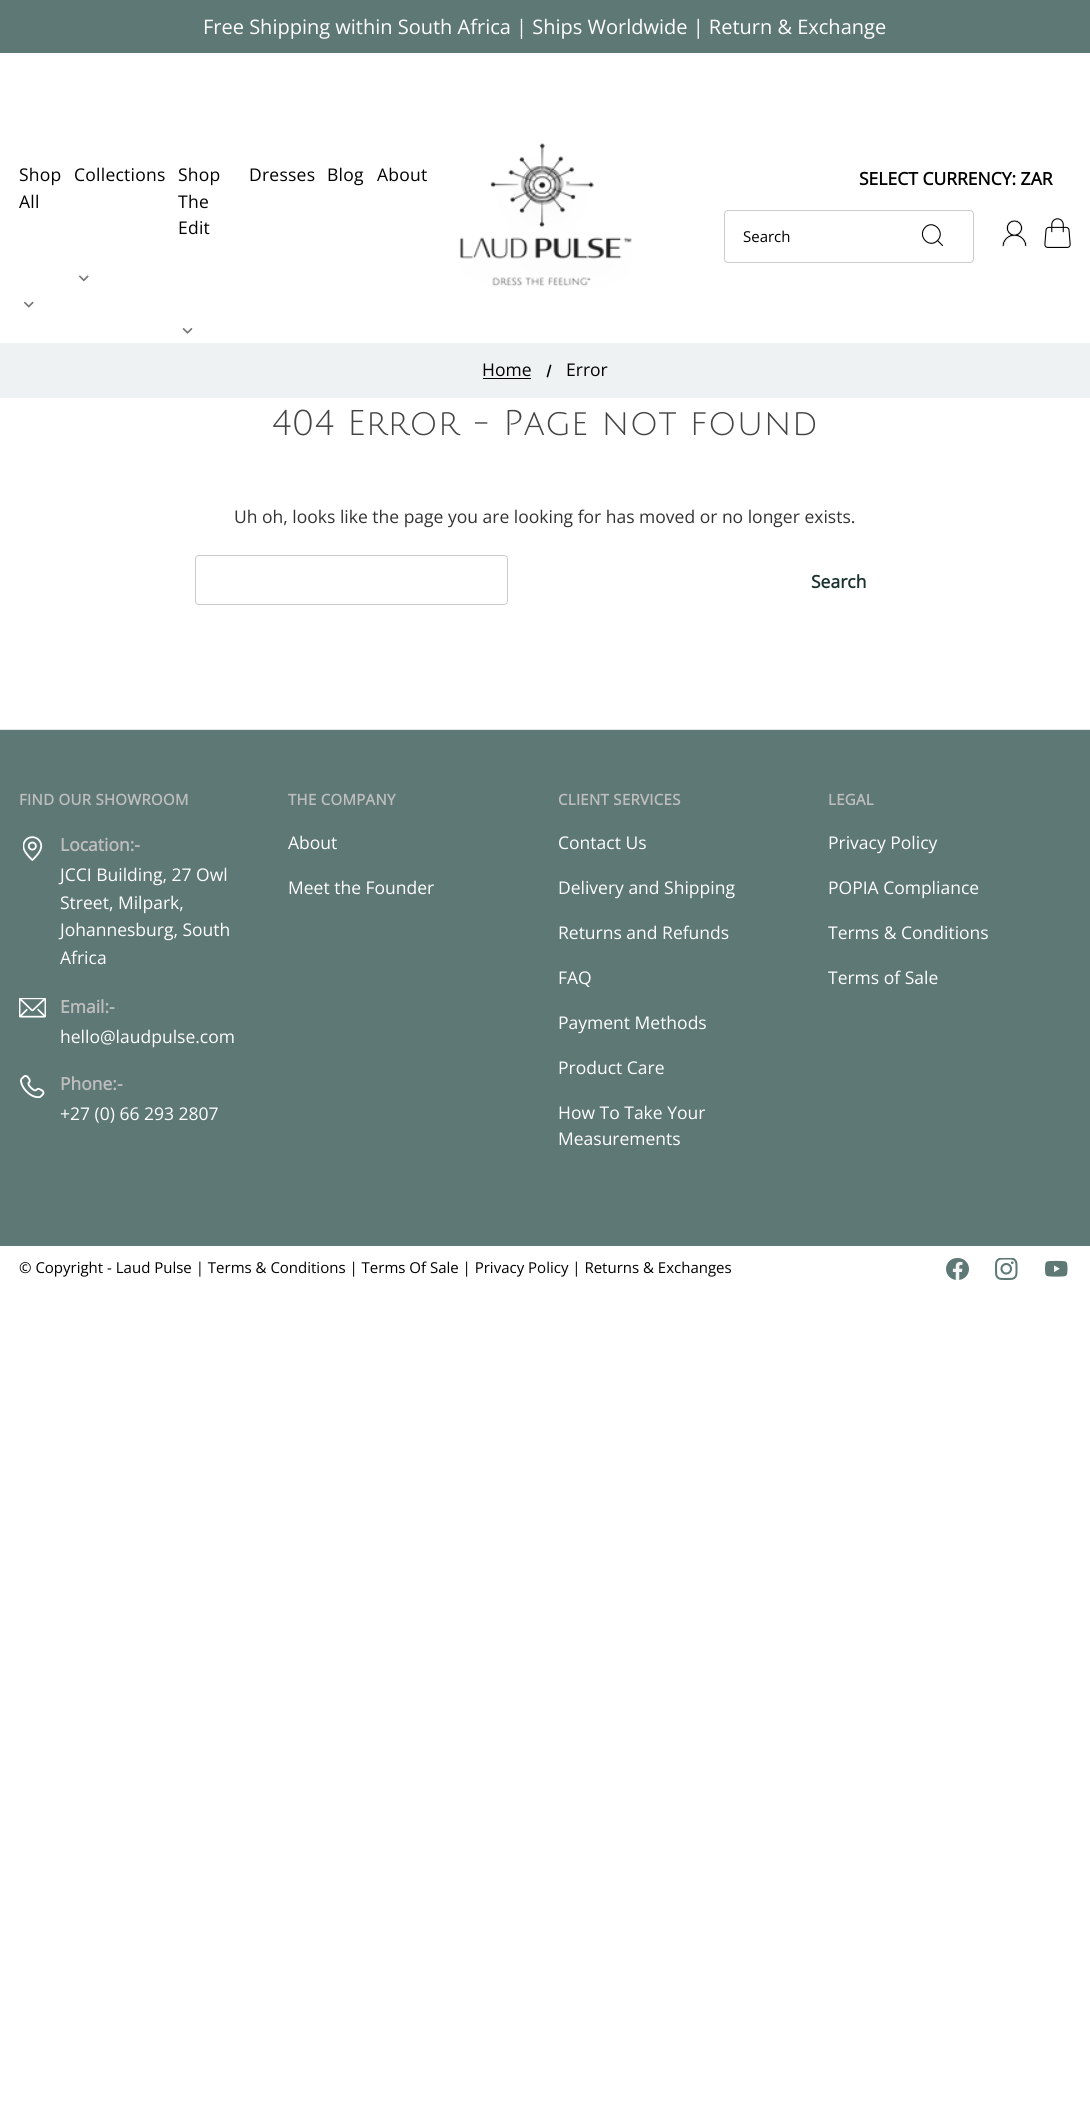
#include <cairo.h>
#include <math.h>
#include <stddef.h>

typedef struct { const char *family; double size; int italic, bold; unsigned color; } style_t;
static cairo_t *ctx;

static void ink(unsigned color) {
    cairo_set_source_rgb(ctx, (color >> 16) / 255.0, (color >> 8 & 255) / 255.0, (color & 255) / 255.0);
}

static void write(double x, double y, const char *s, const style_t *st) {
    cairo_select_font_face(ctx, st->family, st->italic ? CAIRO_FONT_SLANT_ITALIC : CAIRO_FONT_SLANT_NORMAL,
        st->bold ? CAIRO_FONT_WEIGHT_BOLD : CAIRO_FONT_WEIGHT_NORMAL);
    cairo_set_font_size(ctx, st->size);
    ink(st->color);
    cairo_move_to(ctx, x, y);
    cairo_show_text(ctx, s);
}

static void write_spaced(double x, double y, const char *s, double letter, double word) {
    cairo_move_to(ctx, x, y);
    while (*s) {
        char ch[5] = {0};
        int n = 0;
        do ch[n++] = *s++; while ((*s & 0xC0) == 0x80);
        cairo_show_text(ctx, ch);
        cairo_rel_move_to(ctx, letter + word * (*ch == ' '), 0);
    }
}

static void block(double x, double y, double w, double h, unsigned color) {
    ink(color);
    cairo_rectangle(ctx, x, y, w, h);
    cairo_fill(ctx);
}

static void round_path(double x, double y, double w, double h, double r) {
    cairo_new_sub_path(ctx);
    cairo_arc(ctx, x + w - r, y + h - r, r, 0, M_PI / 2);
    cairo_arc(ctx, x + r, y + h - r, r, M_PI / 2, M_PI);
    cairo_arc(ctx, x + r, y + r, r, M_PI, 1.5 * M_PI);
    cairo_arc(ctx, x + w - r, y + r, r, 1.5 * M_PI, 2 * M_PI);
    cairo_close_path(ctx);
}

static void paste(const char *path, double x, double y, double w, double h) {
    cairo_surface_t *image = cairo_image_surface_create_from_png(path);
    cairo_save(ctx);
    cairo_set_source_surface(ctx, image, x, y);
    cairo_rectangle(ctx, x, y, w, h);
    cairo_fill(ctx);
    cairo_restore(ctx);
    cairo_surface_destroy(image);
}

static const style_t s1 = {"Open Sans", 20, 0, 0, 0xffffff};
static const style_t s2 = {"Open Sans", 17.5, 0, 1, 0x000000};
static const style_t s3 = {"Open Sans", 15, 0, 0, 0x000000};
static const style_t s4 = {"Open Sans", 17.5, 0, 0, 0x000000};
static const style_t s5 = {"Open Sans", 17.5, 0, 0, 0x333333};
static const style_t s6 = {"Open Sans", 17.5, 0, 1, 0x1a322f};
static const style_t s7 = {"Open Sans", 17.5, 0, 1, 0xbebebe};
static const style_t s8 = {"Open Sans", 17.5, 0, 0, 0xffffff};

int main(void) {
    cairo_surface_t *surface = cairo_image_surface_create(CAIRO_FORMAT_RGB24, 1090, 2113);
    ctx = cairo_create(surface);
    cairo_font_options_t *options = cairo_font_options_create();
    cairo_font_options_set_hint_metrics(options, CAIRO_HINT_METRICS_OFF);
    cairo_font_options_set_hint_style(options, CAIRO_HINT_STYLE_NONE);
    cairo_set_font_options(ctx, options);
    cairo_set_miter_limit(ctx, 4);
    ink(0xffffff);
    cairo_paint(ctx);
    block(0, 0, 1090, 53, 0x5e7875);
    write(203, 34, "Free Shipping within South Africa | Ships Worldwide | Return & Exchange", &s1);
    cairo_set_font_size(ctx, 17.5);
    ink(0x000000);
    write_spaced(19, 181, "Shop", 0.25, 0);
    write_spaced(19, 208, "All", 0.25, 0);
    paste("pic1.png", 23, 301, 11, 7);
    write_spaced(74, 181, "Collections", 0.25, 0);
    paste("pic2.png", 78, 275, 11, 7);
    write_spaced(178, 181, "Shop", 0.25, 0);
    write_spaced(178, 208, "The", 0.25, 0);
    write_spaced(178, 234, "Edit", 0.25, 0);
    paste("pic3.png", 182, 327, 11, 7);
    write_spaced(249, 181, "Dresses", 0.25, 0);
    write_spaced(327, 181, "Blog", 0.25, 0);
    write_spaced(377, 181, "About", 0.25, 0);
    paste("pic4.png", 459, 143, 173, 144);
    write(859, 185, "SELECT CURRENCY: ZAR", &s2);
    round_path(724.5, 210.5, 249, 52, 3.5);
    ink(0xcbcbcb);
    cairo_set_line_width(ctx, 1);
    cairo_stroke(ctx);
    write(743, 242, "Search", &s3);
    cairo_new_path(ctx);
    cairo_move_to(ctx, 942.5, 245.5);
    cairo_line_to(ctx, 937.5, 240.5);
    cairo_move_to(ctx, 937.5, 240.5);
    cairo_curve_to(ctx, 946, 232, 933, 219, 925, 227.5);
    cairo_curve_to(ctx, 917, 236.5, 929.5, 249, 937.5, 240.5);
    cairo_close_path(ctx);
    cairo_set_line_width(ctx, 1.1);
    cairo_set_line_cap(ctx, CAIRO_LINE_CAP_ROUND);
    cairo_set_line_join(ctx, CAIRO_LINE_JOIN_ROUND);
    cairo_stroke(ctx);
    paste("pic5.png", 1002, 220, 25, 27);
    paste("pic6.png", 1044, 218, 27, 30);
    block(0, 343, 1090, 55, 0xeff2f2);
    write(482, 376, "Home", &s4);
    block(483, 378, 48, 1, 0x000000);
    cairo_new_path(ctx);
    cairo_move_to(ctx, 550, 364.5);
    cairo_line_to(ctx, 551.5, 365);
    cairo_line_to(ctx, 548, 377.5);
    cairo_line_to(ctx, 546.5, 377);
    cairo_close_path(ctx);
    cairo_fill(ctx);
    write(566, 376, "Error", &s4);
    cairo_select_font_face(ctx, "Julius Sans One", CAIRO_FONT_SLANT_NORMAL, CAIRO_FONT_WEIGHT_NORMAL);
    cairo_set_font_size(ctx, 35);
    ink(0x444444);
    write_spaced(272, 435, "404 Error - Page not found", 0.3, 0);
    write(234, 523, "Uh oh, looks like the page you are looking for has moved or no longer exists.", &s5);
    round_path(195.5, 555.5, 312, 49, 3.5);
    ink(0xcbcbcb);
    cairo_set_line_width(ctx, 1);
    cairo_set_line_cap(ctx, CAIRO_LINE_CAP_BUTT);
    cairo_set_line_join(ctx, CAIRO_LINE_JOIN_MITER);
    cairo_stroke(ctx);
    write(811, 588, "Search", &s6);
    block(0, 730, 1090, 516, 0x5e7875);
    block(0, 729, 1090, 1, 0xe5e5e5);
    cairo_set_font_size(ctx, 15);
    ink(0xbebebe);
    write_spaced(19, 805, "FIND OUR SHOWROOM", 0.3, 0);
    paste("pic7.png", 23, 836, 20, 25);
    write(60, 851, "Location:-", &s7);
    write(60, 881, "JCCI Building, 27 Owl", &s8);
    write(60, 909, "Street, Milpark,", &s8);
    write(60, 936, "Johannesburg, South", &s8);
    write(60, 964, "Africa", &s8);
    paste("pic8.png", 19, 998, 27, 20);
    write(60, 1013, "Email:-", &s7);
    write(60, 1043, "hello@laudpulse.com", &s8);
    paste("pic9.png", 20, 1075, 25, 24);
    write(60, 1090, "Phone:-", &s7);
    write(60, 1120, "+27 (0) 66 293 2807", &s8);
    cairo_select_font_face(ctx, "Open Sans", CAIRO_FONT_SLANT_NORMAL, CAIRO_FONT_WEIGHT_BOLD);
    cairo_set_font_size(ctx, 15);
    ink(0xbebebe);
    write_spaced(288, 805, "THE COMPANY", 0.3, 0);
    write(288, 849, "About", &s8);
    write(288, 894, "Meet the Founder", &s8);
    cairo_select_font_face(ctx, "Open Sans", CAIRO_FONT_SLANT_NORMAL, CAIRO_FONT_WEIGHT_BOLD);
    cairo_set_font_size(ctx, 15);
    ink(0xbebebe);
    write_spaced(558, 805, "CLIENT SERVICES", 0.3, 0);
    write(558, 849, "Contact Us", &s8);
    write(558, 894, "Delivery and Shipping", &s8);
    write(558, 939, "Returns and Refunds", &s8);
    write(558, 984, "FAQ", &s8);
    write(558, 1029, "Payment Methods", &s8);
    write(558, 1074, "Product Care", &s8);
    write(558, 1119, "How To Take Your", &s8);
    write(558, 1145, "Measurements", &s8);
    cairo_select_font_face(ctx, "Open Sans", CAIRO_FONT_SLANT_NORMAL, CAIRO_FONT_WEIGHT_BOLD);
    cairo_set_font_size(ctx, 15);
    ink(0xbebebe);
    write_spaced(828, 805, "LEGAL", 0.3, 0);
    write(828, 849, "Privacy Policy", &s8);
    write(828, 894, "POPIA Compliance", &s8);
    write(828, 939, "Terms & Conditions", &s8);
    write(828, 984, "Terms of Sale", &s8);
    write(19, 1273, "© Copyright - Laud Pulse | Terms & Conditions | Terms Of Sale | Privacy Policy | Returns & Exchanges", &s3);
    paste("pic10.png", 946, 1258, 23, 22);
    paste("pic11.png", 995, 1258, 23, 22);
    paste("pic12.png", 1045, 1260, 23, 17);
    cairo_surface_write_to_png(surface, "screenshot.png");
    cairo_font_options_destroy(options);
    cairo_destroy(ctx);
    cairo_surface_destroy(surface);
    return 0;
}
